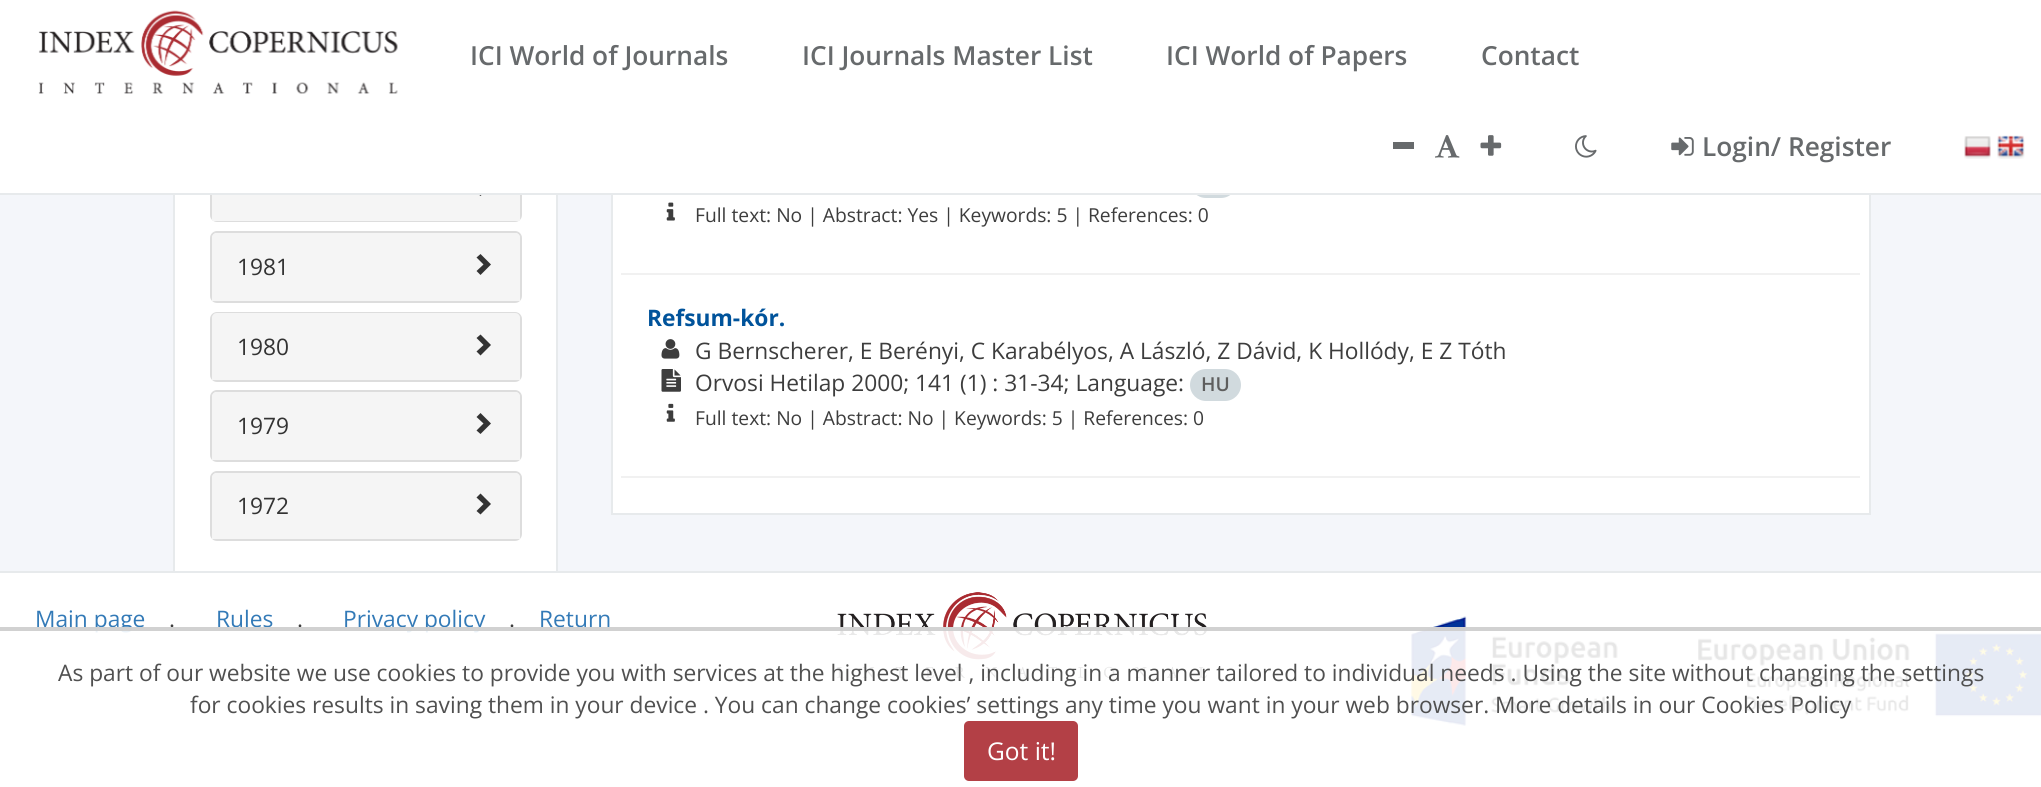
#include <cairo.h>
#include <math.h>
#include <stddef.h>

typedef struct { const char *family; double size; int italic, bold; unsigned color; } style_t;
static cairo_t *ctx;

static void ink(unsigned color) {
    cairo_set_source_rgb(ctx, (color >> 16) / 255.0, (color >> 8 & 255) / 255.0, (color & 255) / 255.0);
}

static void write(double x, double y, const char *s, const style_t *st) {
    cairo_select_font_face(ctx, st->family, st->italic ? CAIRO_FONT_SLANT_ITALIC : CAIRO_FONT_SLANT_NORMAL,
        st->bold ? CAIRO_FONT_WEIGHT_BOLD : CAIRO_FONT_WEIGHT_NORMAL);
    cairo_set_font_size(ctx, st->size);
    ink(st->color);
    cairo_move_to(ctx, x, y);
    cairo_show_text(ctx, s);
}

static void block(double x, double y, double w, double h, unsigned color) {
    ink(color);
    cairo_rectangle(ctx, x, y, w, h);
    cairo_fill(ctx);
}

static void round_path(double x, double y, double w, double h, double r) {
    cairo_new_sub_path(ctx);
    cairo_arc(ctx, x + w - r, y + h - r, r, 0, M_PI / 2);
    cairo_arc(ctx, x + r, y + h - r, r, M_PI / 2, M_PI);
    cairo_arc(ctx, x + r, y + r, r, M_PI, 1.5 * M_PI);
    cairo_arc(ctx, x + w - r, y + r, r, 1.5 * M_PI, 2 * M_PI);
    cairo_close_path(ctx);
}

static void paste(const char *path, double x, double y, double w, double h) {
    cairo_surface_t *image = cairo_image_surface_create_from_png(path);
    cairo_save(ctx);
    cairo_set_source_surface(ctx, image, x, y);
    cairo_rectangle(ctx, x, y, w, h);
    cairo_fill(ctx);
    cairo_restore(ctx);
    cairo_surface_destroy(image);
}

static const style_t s1 = {"Open Sans SemiBold", 26.25, 0, 0, 0x676a6c};
static const style_t s2 = {"Open Sans", 22.75, 0, 0, 0x333333};
static const style_t s3 = {"Open Sans", 19.25, 0, 0, 0x3d3d3d};
static const style_t s4 = {"Open Sans", 22.75, 0, 1, 0x00539b};
static const style_t s5 = {"Open Sans", 22.75, 0, 0, 0x3d3d3d};
static const style_t s6 = {"Open Sans SemiBold", 19.25, 0, 0, 0x5e5e5e};
static const style_t s7 = {"Open Sans", 22.75, 0, 0, 0x337ab7};
static const style_t s8 = {"Open Sans", 22.75, 0, 0, 0x505050};
static const style_t s9 = {"Open Sans", 24.5, 0, 0, 0xffffff};

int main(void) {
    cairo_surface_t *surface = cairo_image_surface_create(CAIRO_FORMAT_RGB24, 2041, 787);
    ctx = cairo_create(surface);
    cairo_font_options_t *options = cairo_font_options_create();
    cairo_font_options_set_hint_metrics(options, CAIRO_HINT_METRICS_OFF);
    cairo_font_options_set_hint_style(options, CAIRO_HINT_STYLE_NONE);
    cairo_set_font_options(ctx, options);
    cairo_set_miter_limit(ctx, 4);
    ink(0xf4f6fa);
    cairo_paint(ctx);
    block(175, 195, 381, 376, 0xffffff);
    cairo_rectangle(ctx, 174, -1, 383, 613);
    ink(0xe7eaec);
    cairo_stroke(ctx);
    round_path(211, 153, 310, 68, 6);
    ink(0xdddddd);
    cairo_stroke(ctx);
    block(212, 195, 308, 26, 0xf5f5f5);
    ink(0x333333);
    cairo_new_path(ctx);
    cairo_move_to(ctx, 491, 185.5);
    cairo_line_to(ctx, 480.5, 196);
    cairo_line_to(ctx, 476.5, 192.5);
    cairo_line_to(ctx, 483.5, 185.5);
    cairo_line_to(ctx, 476.5, 179);
    cairo_line_to(ctx, 480.5, 175);
    cairo_close_path(ctx);
    cairo_fill(ctx);
    block(613, 195, 1256, 318, 0xffffff);
    cairo_rectangle(ctx, 612, -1, 1258, 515);
    ink(0xe7eaec);
    cairo_stroke(ctx);
    ink(0xd1dade);
    round_path(1190, 166, 47, 32, 16);
    cairo_fill(ctx);
    block(0, 0, 2041, 193, 0xffffff);
    block(0, 193, 2041, 2, 0xe7eaec);
    paste("pic1.png", 38, 10, 360, 84);
    write(470, 65, "ICI World of Journals", &s1);
    write(802, 65, "ICI Journals Master List", &s1);
    write(1166, 65, "ICI World of Papers", &s1);
    write(1481, 65, "Contact", &s1);
    block(1393, 142, 21, 7, 0x676a6c);
    paste("pic2.png", 1435, 135, 25, 23);
    paste("pic3.png", 1480, 135, 22, 21);
    paste("pic4.png", 1575, 135, 22, 23);
    paste("pic5.png", 1671, 137, 23, 19);
    write(1702, 156, "Login/ Register", &s1);
    paste("pic6.png", 1964, 136, 27, 23);
    paste("pic7.png", 1997, 135, 28, 24);
    round_path(211, 232, 310, 70, 6);
    ink(0xdddddd);
    cairo_stroke(ctx);
    ink(0xf5f5f5);
    cairo_new_path(ctx);
    cairo_move_to(ctx, 217, 233);
    cairo_line_to(ctx, 515, 233);
    cairo_curve_to(ctx, 518, 233, 520, 235, 520, 238);
    cairo_line_to(ctx, 520, 301);
    cairo_line_to(ctx, 212, 301);
    cairo_line_to(ctx, 212, 238);
    cairo_curve_to(ctx, 212, 235, 214, 233, 217, 233);
    cairo_close_path(ctx);
    cairo_fill(ctx);
    write(237, 275, "1981", &s2);
    cairo_new_path(ctx);
    cairo_move_to(ctx, 491, 264.5);
    cairo_line_to(ctx, 480.5, 275);
    cairo_line_to(ctx, 476.5, 271);
    cairo_line_to(ctx, 483.5, 264.5);
    cairo_line_to(ctx, 476.5, 257.5);
    cairo_line_to(ctx, 480.5, 254);
    cairo_close_path(ctx);
    cairo_fill(ctx);
    round_path(211, 313, 310, 68, 6);
    ink(0xdddddd);
    cairo_stroke(ctx);
    ink(0xf5f5f5);
    cairo_new_path(ctx);
    cairo_move_to(ctx, 217, 313);
    cairo_line_to(ctx, 515, 313);
    cairo_curve_to(ctx, 518, 313, 520, 315, 520, 318);
    cairo_line_to(ctx, 520, 380);
    cairo_line_to(ctx, 212, 380);
    cairo_line_to(ctx, 212, 318);
    cairo_curve_to(ctx, 212, 315, 214, 313, 217, 313);
    cairo_close_path(ctx);
    cairo_fill(ctx);
    write(237, 355, "1980", &s2);
    cairo_new_path(ctx);
    cairo_move_to(ctx, 491, 345);
    cairo_line_to(ctx, 480.5, 355.5);
    cairo_line_to(ctx, 476.5, 351.5);
    cairo_line_to(ctx, 483.5, 345);
    cairo_line_to(ctx, 476.5, 338);
    cairo_line_to(ctx, 480.5, 334.5);
    cairo_close_path(ctx);
    cairo_fill(ctx);
    round_path(211, 391, 310, 70, 6);
    ink(0xdddddd);
    cairo_stroke(ctx);
    ink(0xf5f5f5);
    cairo_new_path(ctx);
    cairo_move_to(ctx, 217, 392);
    cairo_line_to(ctx, 515, 392);
    cairo_curve_to(ctx, 518, 392, 520, 394, 520, 397);
    cairo_line_to(ctx, 520, 460);
    cairo_line_to(ctx, 212, 460);
    cairo_line_to(ctx, 212, 397);
    cairo_curve_to(ctx, 212, 394, 214, 392, 217, 392);
    cairo_close_path(ctx);
    cairo_fill(ctx);
    write(237, 434, "1979", &s2);
    cairo_new_path(ctx);
    cairo_move_to(ctx, 491, 423.5);
    cairo_line_to(ctx, 480.5, 434);
    cairo_line_to(ctx, 476.5, 430.5);
    cairo_line_to(ctx, 483.5, 423.5);
    cairo_line_to(ctx, 476.5, 417);
    cairo_line_to(ctx, 480.5, 413);
    cairo_close_path(ctx);
    cairo_fill(ctx);
    round_path(211, 472, 310, 68, 6);
    ink(0xdddddd);
    cairo_stroke(ctx);
    ink(0xf5f5f5);
    cairo_new_path(ctx);
    cairo_move_to(ctx, 217, 473);
    cairo_line_to(ctx, 515, 473);
    cairo_curve_to(ctx, 518, 473, 520, 475, 520, 478);
    cairo_line_to(ctx, 520, 539);
    cairo_line_to(ctx, 212, 539);
    cairo_line_to(ctx, 212, 478);
    cairo_curve_to(ctx, 212, 475, 214, 473, 217, 473);
    cairo_close_path(ctx);
    cairo_fill(ctx);
    write(237, 514, "1972", &s2);
    cairo_new_path(ctx);
    cairo_move_to(ctx, 491, 504);
    cairo_line_to(ctx, 480.5, 514.5);
    cairo_line_to(ctx, 476.5, 511);
    cairo_line_to(ctx, 483.5, 504);
    cairo_line_to(ctx, 476.5, 497.5);
    cairo_line_to(ctx, 480.5, 493.5);
    cairo_close_path(ctx);
    cairo_fill(ctx);
    block(621, 273, 1239, 2, 0xf1f1f1);
    paste("pic8.png", 666, 202, 9, 19);
    write(695, 222, "Full text: No | Abstract: Yes | Keywords: 5 | References: 0", &s3);
    block(621, 476, 1239, 2, 0xf1f1f1);
    write(647, 326, "Refsum-kór.", &s4);
    paste("pic9.png", 661, 339, 19, 20);
    write(695, 359, "G Bernscherer, E Berényi, C Karabélyos, A László, Z Dávid, K Hollódy, E Z Tóth", &s5);
    paste("pic10.png", 661, 369, 20, 23);
    write(695, 391, "Orvosi Hetilap 2000; 141 (1) : 31-34; Language:", &s5);
    ink(0xd1dade);
    round_path(1190, 369, 51, 32, 16);
    cairo_fill(ctx);
    write(1201, 391, "HU", &s6);
    paste("pic11.png", 666, 403, 9, 19);
    write(695, 425, "Full text: No | Abstract: No | Keywords: 5 | References: 0", &s3);
    block(0, 573, 2041, 214, 0xffffff);
    block(0, 571, 2041, 2, 0xe7eaec);
    write(35, 627, "Main page", &s7);
    write(169, 627, ".", &s5);
    write(216, 627, "Rules", &s7);
    write(297, 627, ".", &s5);
    write(343, 627, "Privacy policy", &s7);
    write(509, 627, ".", &s5);
    write(539, 627, "Return", &s7);
    paste("pic12.png", 837, 592, 370, 86);
    paste("pic13.png", 1411, 616, 630, 110);
    cairo_set_source_rgba(ctx, 1, 1, 1, 0.9);
    cairo_rectangle(ctx, 59, 627, 1982, 99);
    cairo_fill(ctx);
    cairo_set_source_rgba(ctx, 0.8, 0.8, 0.8, 0.9);
    cairo_rectangle(ctx, 0, 627, 2041, 4);
    cairo_fill(ctx);
    write(58, 681, "As part of our website we use cookies to provide you with services at the highest level , including in a manner tailored to individual needs . Using the site without changing the settings", &s8);
    write(190, 713, "for cookies results in saving them in your device . You can change cookies’ settings any time you want in your web browser. More details in our Cookies Policy", &s8);
    ink(0xb34046);
    round_path(964, 721, 114, 60, 5);
    cairo_fill(ctx);
    write(987, 760, "Got it!", &s9);
    cairo_surface_write_to_png(surface, "screenshot.png");
    cairo_font_options_destroy(options);
    cairo_destroy(ctx);
    cairo_surface_destroy(surface);
    return 0;
}
